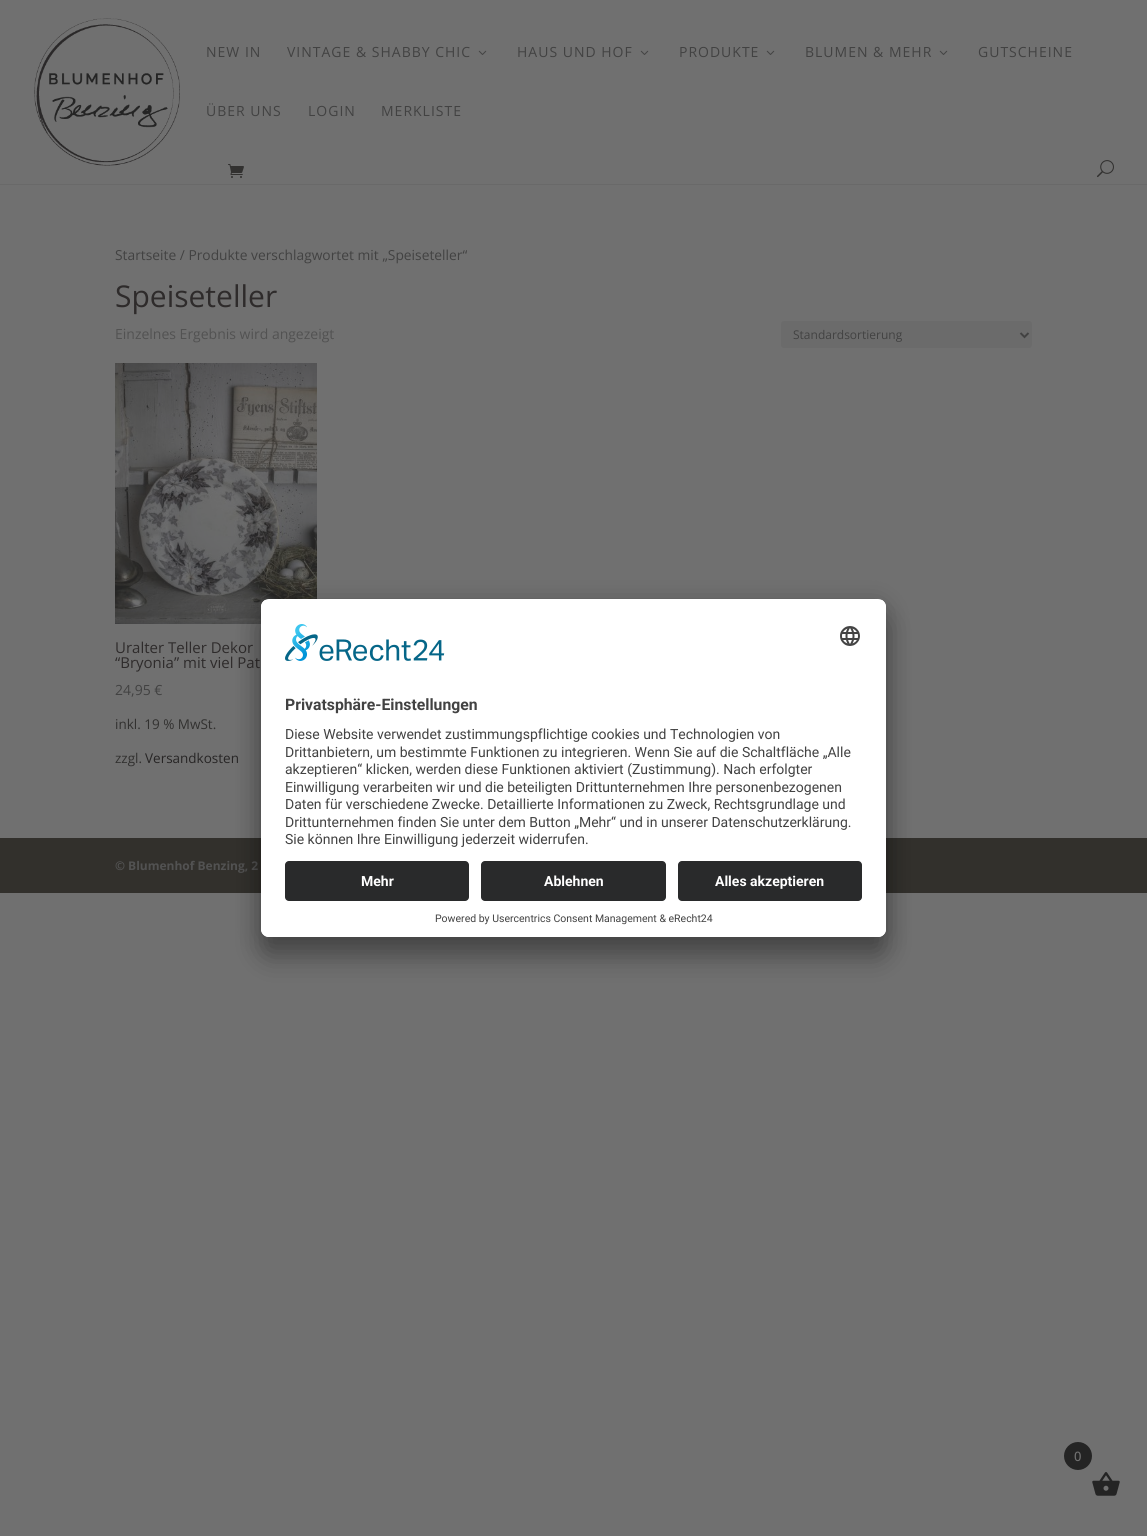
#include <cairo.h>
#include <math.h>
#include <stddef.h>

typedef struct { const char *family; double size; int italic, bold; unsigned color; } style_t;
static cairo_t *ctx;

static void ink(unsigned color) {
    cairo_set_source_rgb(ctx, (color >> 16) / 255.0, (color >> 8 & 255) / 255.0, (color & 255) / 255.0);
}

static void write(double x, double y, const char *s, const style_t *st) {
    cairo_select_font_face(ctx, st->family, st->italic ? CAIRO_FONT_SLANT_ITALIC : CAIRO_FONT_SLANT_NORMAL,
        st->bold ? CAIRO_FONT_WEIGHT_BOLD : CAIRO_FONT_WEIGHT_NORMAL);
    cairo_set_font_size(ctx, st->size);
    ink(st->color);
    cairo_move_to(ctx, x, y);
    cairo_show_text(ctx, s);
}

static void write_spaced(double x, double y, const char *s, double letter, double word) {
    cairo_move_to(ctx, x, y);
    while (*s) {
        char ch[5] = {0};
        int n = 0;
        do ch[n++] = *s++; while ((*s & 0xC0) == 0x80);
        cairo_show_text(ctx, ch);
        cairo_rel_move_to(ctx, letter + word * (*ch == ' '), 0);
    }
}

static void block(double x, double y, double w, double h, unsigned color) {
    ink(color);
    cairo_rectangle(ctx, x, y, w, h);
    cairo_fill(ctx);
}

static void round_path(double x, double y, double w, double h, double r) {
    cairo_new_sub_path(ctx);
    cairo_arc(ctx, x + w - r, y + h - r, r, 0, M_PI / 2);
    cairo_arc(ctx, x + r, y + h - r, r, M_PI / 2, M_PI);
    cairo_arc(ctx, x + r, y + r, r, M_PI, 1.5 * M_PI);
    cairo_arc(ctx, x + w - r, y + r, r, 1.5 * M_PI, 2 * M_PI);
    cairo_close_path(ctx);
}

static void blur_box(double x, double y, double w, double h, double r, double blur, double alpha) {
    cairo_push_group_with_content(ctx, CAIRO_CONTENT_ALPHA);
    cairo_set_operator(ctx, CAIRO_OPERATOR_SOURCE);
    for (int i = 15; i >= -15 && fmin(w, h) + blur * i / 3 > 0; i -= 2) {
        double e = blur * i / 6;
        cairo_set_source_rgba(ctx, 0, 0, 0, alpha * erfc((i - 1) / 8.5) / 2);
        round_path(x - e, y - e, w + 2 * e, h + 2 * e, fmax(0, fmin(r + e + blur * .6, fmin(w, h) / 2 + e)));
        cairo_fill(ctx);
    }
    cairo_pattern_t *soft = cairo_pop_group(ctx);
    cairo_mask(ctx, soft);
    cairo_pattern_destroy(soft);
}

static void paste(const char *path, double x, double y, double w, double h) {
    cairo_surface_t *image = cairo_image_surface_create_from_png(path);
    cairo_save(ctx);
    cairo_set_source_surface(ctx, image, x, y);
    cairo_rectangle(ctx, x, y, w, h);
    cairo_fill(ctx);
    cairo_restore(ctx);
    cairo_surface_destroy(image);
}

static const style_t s1 = {"Open Sans", 13.8, 0, 0, 0x424242};
static const style_t s2 = {"Open Sans", 30, 0, 0, 0x2e2b2b};
static const style_t s3 = {"Open Sans", 14, 0, 0, 0x525252};
static const style_t s4 = {"Open Sans", 12, 0, 0, 0x424242};
static const style_t s5 = {"Open Sans", 15, 0, 0, 0x2e2b2b};
static const style_t s6 = {"Open Sans", 14, 0, 0, 0x424242};
static const style_t s7 = {"Open Sans", 13.5, 0, 0, 0x323130};
static const style_t s8 = {"Open Sans", 13.5, 0, 0, 0x272525};
static const style_t s9 = {"Open Sans", 12, 0, 1, 0x525252};
static const style_t s10 = {"Roboto", 15.75, 0, 1, 0x424242};
static const style_t s11 = {"Roboto", 14, 0, 0, 0x424242};
static const style_t s12 = {"Roboto", 14, 0, 1, 0xffffff};
static const style_t s13 = {"Roboto", 10.5, 0, 0, 0x424242};
static const style_t s14 = {"Open Sans Medium", 13, 0, 0, 0x707070};

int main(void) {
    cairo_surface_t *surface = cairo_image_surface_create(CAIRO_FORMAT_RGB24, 1147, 1536);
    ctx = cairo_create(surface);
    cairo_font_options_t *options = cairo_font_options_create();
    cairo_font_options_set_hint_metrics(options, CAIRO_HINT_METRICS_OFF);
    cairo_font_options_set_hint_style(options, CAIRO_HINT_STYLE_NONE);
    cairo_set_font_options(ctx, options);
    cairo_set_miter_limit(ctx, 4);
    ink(0x707070);
    cairo_paint(ctx);
    block(0, 184, 1147, 1, 0x696969);
    paste("pic1.png", 34, 18, 146, 148);
    cairo_select_font_face(ctx, "Open Sans", CAIRO_FONT_SLANT_NORMAL, CAIRO_FONT_WEIGHT_NORMAL);
    cairo_set_font_size(ctx, 14);
    ink(0x424242);
    write_spaced(206, 57, "NEW IN", 1, 0);
    write_spaced(287, 57, "VINTAGE & SHABBY CHIC", 1, 0);
    paste("pic2.png", 478, 50, 9, 5);
    write_spaced(517, 57, "HAUS UND HOF", 1, 0);
    paste("pic2.png", 640, 50, 9, 5);
    write_spaced(679, 57, "PRODUKTE", 1, 0);
    paste("pic2.png", 766, 50, 9, 5);
    write_spaced(805, 57, "BLUMEN & MEHR", 1, 0);
    paste("pic2.png", 939, 50, 9, 5);
    write_spaced(978, 57, "GUTSCHEINE", 1, 0);
    write_spaced(206, 116, "ÜBER UNS", 1, 0);
    write_spaced(308, 116, "LOGIN", 1, 0);
    write_spaced(381, 116, "MERKLISTE", 1, 0);
    paste("pic3.png", 228, 164, 16, 14);
    paste("pic4.png", 1097, 160, 17, 18);
    write(115, 260, "Startseite / Produkte verschlagwortet mit „Speiseteller“", &s1);
    write(115, 307, "Speiseteller", &s2);
    write(115, 339, "Einzelnes Ergebnis wird angezeigt", &s3);
    ink(0x6b6b6b);
    round_path(781, 321, 251, 27, 3);
    cairo_fill(ctx);
    cairo_new_path(ctx);
    cairo_move_to(ctx, 1020.5, 333);
    cairo_line_to(ctx, 1024.5, 337);
    cairo_line_to(ctx, 1028.5, 333);
    ink(0x424242);
    cairo_stroke(ctx);
    write(793, 339, "Standardsortierung", &s4);
    paste("pic5.png", 115, 363, 202, 261);
    write(115, 653, "Uralter Teller Dekor", &s5);
    write(115, 668, "“Bryonia” mit viel Pat", &s5);
    write(115, 695, "24,95 €", &s6);
    write(115, 729, "inkl. 19 % MwSt.", &s7);
    write(115, 763, "zzgl.", &s7);
    write(145, 763, "Versandkosten", &s8);
    block(0, 838, 1147, 55, 0x32302c);
    write(115, 870, "© Blumenhof Benzing, 2", &s9);
    ink(0x000000);
    blur_box(261, 619, 625, 338, 8, 14, 0.3);
    blur_box(261, 604, 625, 338, 8, 13, 0.22);
    ink(0xffffff);
    round_path(261, 599, 625, 338, 8);
    cairo_fill(ctx);
    cairo_save(ctx);
    round_path(261, 599, 625, 338, 8);
    cairo_clip(ctx);
    cairo_new_path(ctx);
    cairo_move_to(ctx, 269, 599);
    cairo_line_to(ctx, 878, 599);
    cairo_curve_to(ctx, 882.5, 599, 886, 602.5, 886, 607);
    cairo_line_to(ctx, 886, 853);
    cairo_line_to(ctx, 261, 853);
    cairo_line_to(ctx, 261, 607);
    cairo_curve_to(ctx, 261, 602.5, 264.5, 599, 269, 599);
    cairo_close_path(ctx);
    cairo_clip(ctx);
    block(261, 600, 625, 253, 0xffffff);
    cairo_restore(ctx);
    paste("pic6.png", 285, 624, 160, 37);
    paste("pic7.png", 840, 626, 20, 20);
    write(285, 710, "Privatsphäre-Einstellungen", &s10);
    write(285, 739, "Diese Website verwendet zustimmungspflichtige cookies und Technologien von", &s11);
    write(285, 757, "Drittanbietern, um bestimmte Funktionen zu integrieren. Wenn Sie auf die Schaltfläche „Alle", &s11);
    write(285, 774, "akzeptieren“ klicken, werden diese Funktionen aktiviert (Zustimmung). Nach erfolgter", &s11);
    write(285, 792, "Einwilligung verarbeiten wir und die beteiligten Drittunternehmen Ihre personenbezogenen", &s11);
    write(285, 809, "Daten für verschiedene Zwecke. Detaillierte Informationen zu Zweck, Rechtsgrundlage und", &s11);
    write(285, 827, "Drittunternehmen finden Sie unter dem Button „Mehr“ und in unserer Datenschutzerklärung.", &s11);
    write(285, 844, "Sie können Ihre Einwilligung jederzeit widerrufen.", &s11);
    ink(0xffffff);
    cairo_new_path(ctx);
    cairo_move_to(ctx, 261, 853);
    cairo_line_to(ctx, 886, 853);
    cairo_line_to(ctx, 886, 929);
    cairo_curve_to(ctx, 886, 933.5, 882.5, 937, 878, 937);
    cairo_line_to(ctx, 269, 937);
    cairo_curve_to(ctx, 264.5, 937, 261, 933.5, 261, 929);
    cairo_close_path(ctx);
    cairo_fill(ctx);
    ink(0x292a2b);
    round_path(285, 861, 184, 40, 4);
    cairo_fill(ctx);
    write(361, 886, "Mehr", &s12);
    ink(0x292a2b);
    round_path(481, 861, 185, 40, 4);
    cairo_fill(ctx);
    write(544, 886, "Ablehnen", &s12);
    ink(0x292a2b);
    round_path(678, 861, 184, 40, 4);
    cairo_fill(ctx);
    write(715, 886, "Alles akzeptieren", &s12);
    write(435, 922, "Powered by Usercentrics Consent Management & eRecht24", &s13);
    ink(0x242424);
    cairo_new_path(ctx);
    cairo_arc(ctx, 1078, 1456, 14, 0, 2 * M_PI);
    cairo_fill(ctx);
    write(1074, 1461, "0", &s14);
    paste("pic8.png", 1092, 1472, 28, 24);
    cairo_surface_write_to_png(surface, "screenshot.png");
    cairo_font_options_destroy(options);
    cairo_destroy(ctx);
    cairo_surface_destroy(surface);
    return 0;
}
